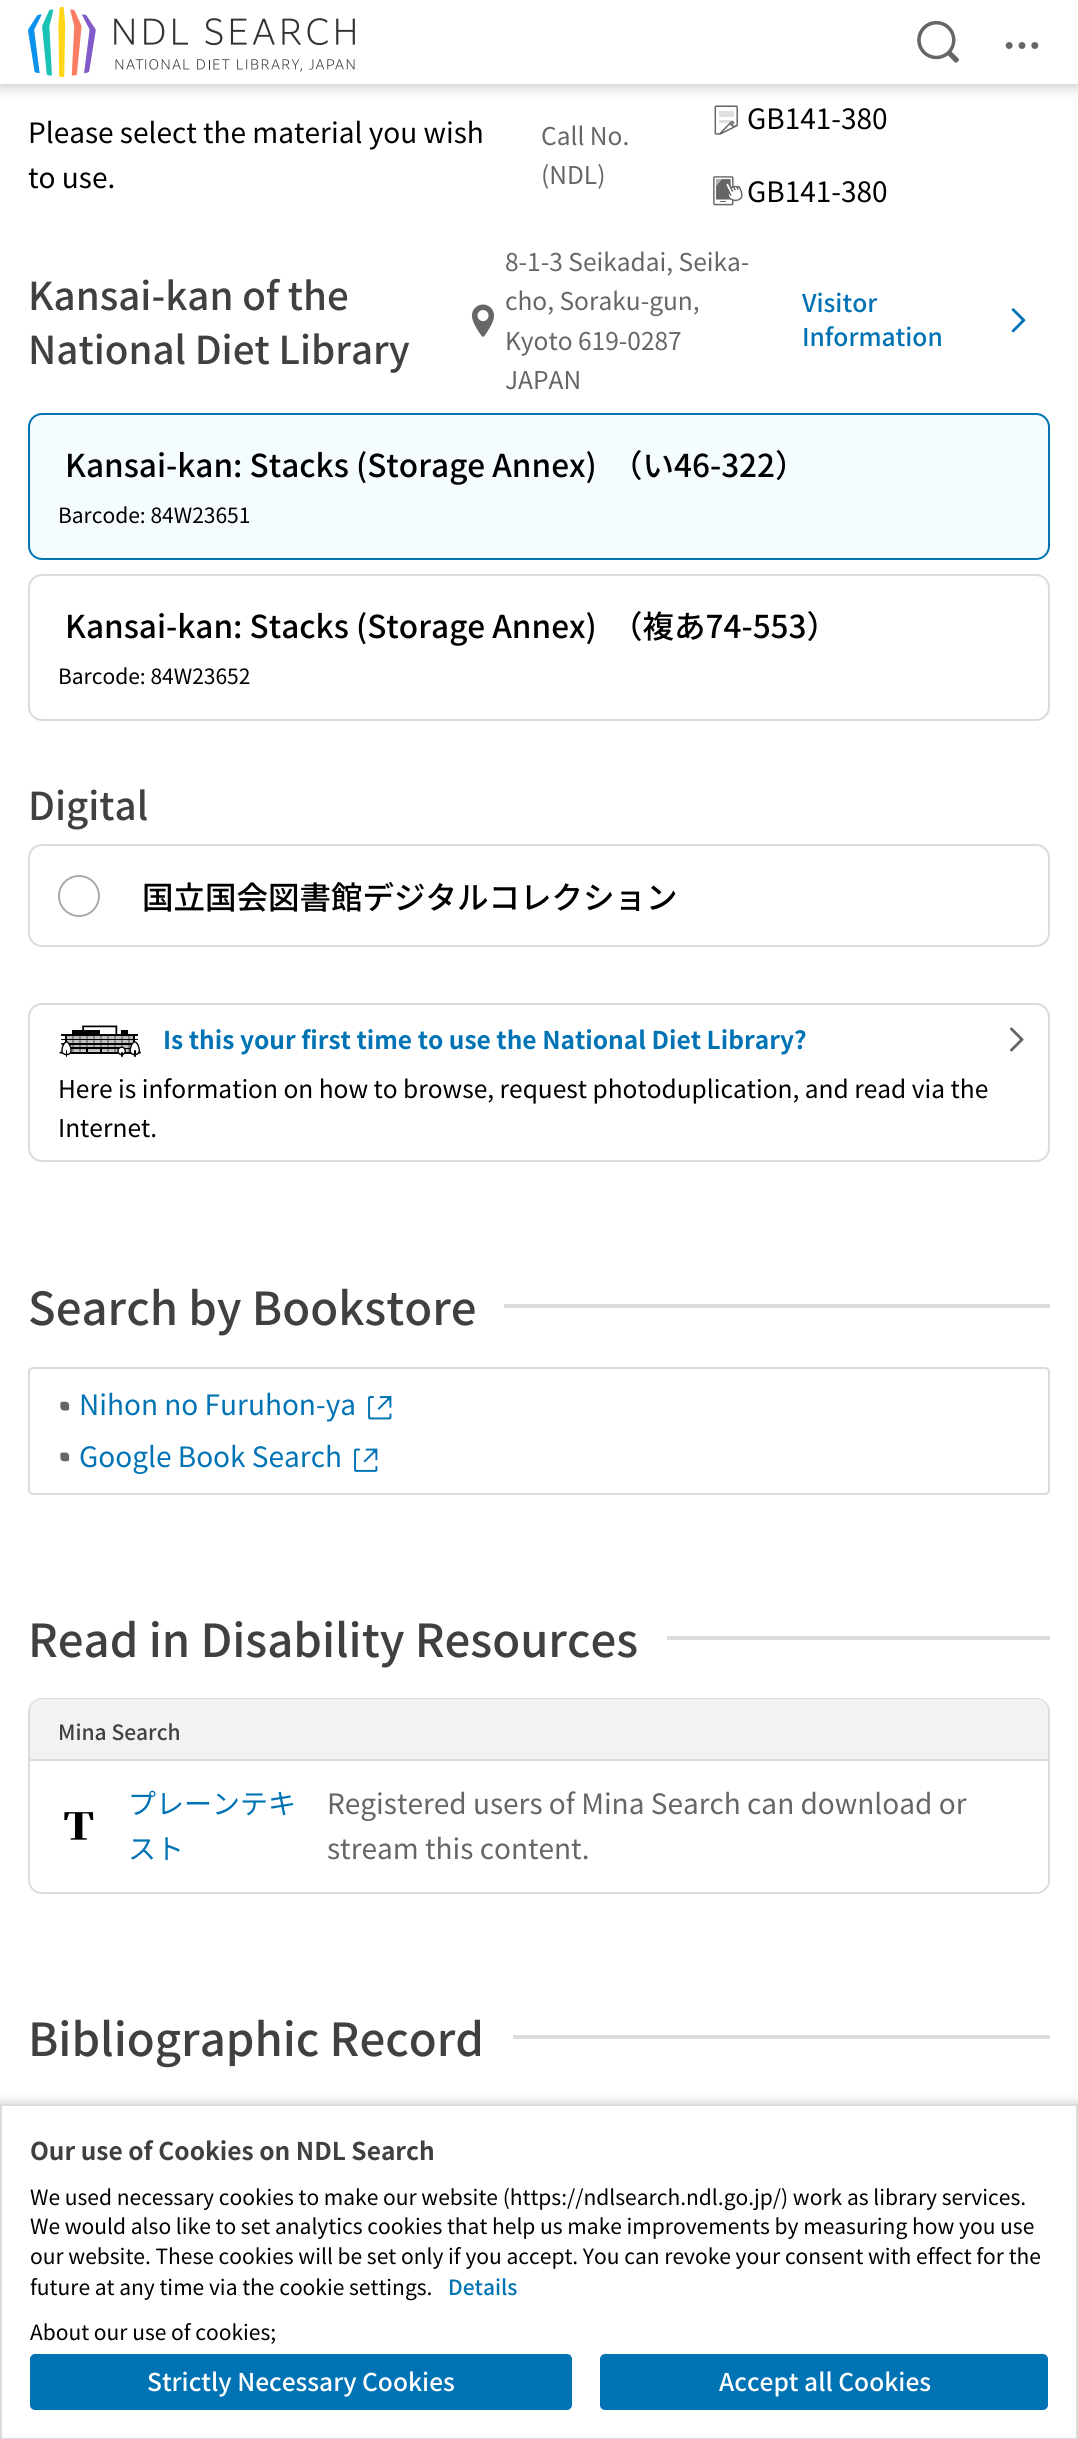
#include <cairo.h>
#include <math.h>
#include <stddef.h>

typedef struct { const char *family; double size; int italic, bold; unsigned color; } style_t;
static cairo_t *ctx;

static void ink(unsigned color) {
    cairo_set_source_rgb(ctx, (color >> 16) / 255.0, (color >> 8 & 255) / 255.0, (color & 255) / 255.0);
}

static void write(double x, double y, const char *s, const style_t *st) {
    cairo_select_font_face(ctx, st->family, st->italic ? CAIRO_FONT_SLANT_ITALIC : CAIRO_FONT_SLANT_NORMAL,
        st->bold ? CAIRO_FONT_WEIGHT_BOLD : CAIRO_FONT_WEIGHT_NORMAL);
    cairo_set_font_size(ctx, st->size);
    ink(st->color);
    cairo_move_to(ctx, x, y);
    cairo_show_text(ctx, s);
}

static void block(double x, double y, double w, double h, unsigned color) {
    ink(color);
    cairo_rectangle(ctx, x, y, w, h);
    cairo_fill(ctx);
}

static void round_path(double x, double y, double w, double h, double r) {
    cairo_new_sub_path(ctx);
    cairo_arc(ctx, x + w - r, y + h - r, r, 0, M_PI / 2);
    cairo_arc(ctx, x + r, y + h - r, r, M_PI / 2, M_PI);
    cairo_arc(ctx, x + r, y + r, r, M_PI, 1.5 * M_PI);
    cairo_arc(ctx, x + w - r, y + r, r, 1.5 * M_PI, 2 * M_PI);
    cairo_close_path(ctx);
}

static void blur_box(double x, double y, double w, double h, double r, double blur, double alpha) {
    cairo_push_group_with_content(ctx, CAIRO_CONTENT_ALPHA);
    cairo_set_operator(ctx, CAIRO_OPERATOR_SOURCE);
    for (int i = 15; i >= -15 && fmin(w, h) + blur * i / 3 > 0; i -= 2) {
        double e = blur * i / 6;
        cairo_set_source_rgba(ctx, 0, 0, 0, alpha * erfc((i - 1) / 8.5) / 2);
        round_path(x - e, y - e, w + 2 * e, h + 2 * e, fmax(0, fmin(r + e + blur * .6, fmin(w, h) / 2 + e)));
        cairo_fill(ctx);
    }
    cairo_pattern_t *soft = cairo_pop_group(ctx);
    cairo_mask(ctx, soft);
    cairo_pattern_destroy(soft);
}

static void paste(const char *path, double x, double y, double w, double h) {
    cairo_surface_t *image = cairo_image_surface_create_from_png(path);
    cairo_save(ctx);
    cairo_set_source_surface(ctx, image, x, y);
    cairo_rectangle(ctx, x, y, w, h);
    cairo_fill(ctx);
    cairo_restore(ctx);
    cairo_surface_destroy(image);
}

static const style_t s1 = {"Noto Sans JP", 28, 0, 0, 0x000000};
static const style_t s2 = {"Noto Sans JP", 24.5, 0, 0, 0x666666};
static const style_t s3 = {"Noto Sans JP Medium", 38.5, 0, 0, 0x404040};
static const style_t s4 = {"Noto Sans JP Medium", 24.5, 0, 0, 0x0073b5};
static const style_t s5 = {"Noto Sans JP Medium", 31.5, 0, 0, 0x000000};
static const style_t s6 = {"Noto Sans JP", 21, 0, 0, 0x000000};
static const style_t s7 = {"Noto Sans JP", 24.5, 0, 1, 0x0073b5};
static const style_t s8 = {"Noto Sans JP", 24.5, 0, 0, 0x000000};
static const style_t s9 = {"Noto Sans JP Medium", 45.5, 0, 0, 0x404040};
static const style_t s10 = {"Noto Sans JP", 28, 0, 0, 0x0073b5};
static const style_t s11 = {"Noto Sans JP Medium", 21, 0, 0, 0x404040};
static const style_t s12 = {"Noto Sans JP", 28, 0, 0, 0x666666};
static const style_t s13 = {"Noto Sans JP", 24.5, 0, 1, 0x404040};
static const style_t s14 = {"Noto Sans JP Medium", 21, 0, 0, 0x0073b5};
static const style_t s15 = {"Noto Sans JP Medium", 24.5, 0, 0, 0xffffff};

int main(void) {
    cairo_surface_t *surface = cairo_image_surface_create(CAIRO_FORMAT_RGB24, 1078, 2439);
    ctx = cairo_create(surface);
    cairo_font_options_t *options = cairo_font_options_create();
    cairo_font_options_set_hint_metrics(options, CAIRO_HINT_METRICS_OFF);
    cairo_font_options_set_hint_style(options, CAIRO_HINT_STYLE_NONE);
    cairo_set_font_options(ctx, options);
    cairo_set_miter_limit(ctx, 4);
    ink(0xffffff);
    cairo_paint(ctx);
    paste("pic4.png", 714, 105, 24, 30);
    ink(0x000000);
    blur_box(0, 2, 1078, 84, 0, 7, 0.24);
    block(0, 0, 1078, 84, 0xffffff);
    paste("pic1.png", 28, 7, 327, 70);
    paste("pic2.png", 917, 20, 42, 43);
    paste("pic3.png", 1005, 42, 34, 7);
    write(28, 143, "Please select the material you wish", &s1);
    write(28, 188, "to use.", &s1);
    write(541, 145, "Call No.", &s2);
    write(541, 184, "(NDL)", &s2);
    write(747, 129, "GB141-380", &s1);
    paste("pic5.png", 713, 176, 30, 30);
    write(747, 202, "GB141-380", &s1);
    write(28, 310, "Kansai-kan of the", &s3);
    write(28, 364, "National Diet Library", &s3);
    paste("pic6.png", 471, 304, 24, 33);
    write(505, 271, "8-1-3 Seikadai, Seika-", &s2);
    write(505, 310, "cho, Soraku-gun,", &s2);
    write(505, 350, "Kyoto 619-0287", &s2);
    write(505, 389, "JAPAN", &s2);
    write(802, 312, "Visitor", &s4);
    paste("pic7.png", 1011, 308, 15, 25);
    write(802, 346, "Information", &s4);
    ink(0xf5fcff);
    round_path(29, 414, 1020, 145, 13);
    cairo_fill_preserve(ctx);
    ink(0x0073b5);
    cairo_stroke(ctx);
    write(65, 477, "Kansai-kan: Stacks (Storage Annex)", &s5);
    write(611, 477, "（い46-322）", &s5);
    write(58, 523, "Barcode: 84W23651", &s6);
    round_path(29, 575, 1020, 145, 13);
    ink(0xdbdbdb);
    cairo_stroke(ctx);
    write(65, 638, "Kansai-kan: Stacks (Storage Annex)", &s5);
    write(611, 638, "（複あ74-553）", &s5);
    write(58, 684, "Barcode: 84W23652", &s6);
    write(28, 820, "Digital", &s3);
    round_path(29, 845, 1020, 101, 13);
    ink(0xdbdbdb);
    cairo_stroke(ctx);
    cairo_arc(ctx, 79, 896, 20, 0, 2 * M_PI);
    ink(0xaaaaaa);
    cairo_stroke(ctx);
    write(142, 909, "国立国会図書館デジタルコレクション", &s5);
    round_path(29, 1004, 1020, 157, 13);
    ink(0xdbdbdb);
    cairo_stroke(ctx);
    paste("pic8.png", 59, 1025, 82, 32);
    write(163, 1049, "Is this your first time to use the National Diet Library?", &s7);
    write(58, 1098, "Here is information on how to browse, request photoduplication, and read via the", &s8);
    write(58, 1137, "Internet.", &s8);
    paste("pic9.png", 1010, 1027, 14, 25);
    write(28, 1325, "Search by Bookstore", &s9);
    block(504, 1304, 546, 4, 0xdbdbdb);
    round_path(29, 1368, 1020, 126, 4);
    cairo_stroke(ctx);
    paste("pic10.png", 60, 1401, 10, 10);
    write(79, 1415, "Nihon no Furuhon-ya", &s10);
    paste("pic11.png", 368, 1396, 24, 24);
    paste("pic12.png", 60, 1452, 10, 10);
    write(79, 1467, "Google Book Search", &s10);
    paste("pic13.png", 354, 1448, 24, 24);
    write(28, 1657, "Read in Disability Resources", &s9);
    block(667, 1636, 383, 4, 0xdbdbdb);
    round_path(29, 1699, 1020, 194, 13);
    cairo_stroke(ctx);
    ink(0xf2f2f2);
    cairo_new_path(ctx);
    cairo_move_to(ctx, 42, 1699);
    cairo_line_to(ctx, 1036, 1699);
    cairo_curve_to(ctx, 1042.5, 1699, 1048, 1704.5, 1048, 1711);
    cairo_line_to(ctx, 1048, 1759);
    cairo_line_to(ctx, 30, 1759);
    cairo_line_to(ctx, 30, 1711);
    cairo_curve_to(ctx, 30, 1704.5, 35.5, 1699, 42, 1699);
    cairo_close_path(ctx);
    cairo_fill(ctx);
    write(58, 1740, "Mina Search", &s11);
    ink(0xffffff);
    cairo_new_path(ctx);
    cairo_move_to(ctx, 30, 1759);
    cairo_line_to(ctx, 1048, 1759);
    cairo_line_to(ctx, 1048, 1880);
    cairo_curve_to(ctx, 1048, 1886.5, 1042.5, 1892, 1036, 1892);
    cairo_line_to(ctx, 42, 1892);
    cairo_curve_to(ctx, 35.5, 1892, 30, 1886.5, 30, 1880);
    cairo_close_path(ctx);
    cairo_fill(ctx);
    block(30, 1759, 1018, 2, 0xdbdbdb);
    paste("pic14.png", 64, 1812, 30, 28);
    write(128, 1814, "プレーンテキ", &s10);
    write(128, 1859, "スト", &s10);
    write(327, 1814, "Registered users of Mina Search can download or", &s12);
    write(327, 1859, "stream this content.", &s12);
    write(28, 2056, "Bibliographic Record", &s9);
    block(513, 2035, 537, 4, 0xdbdbdb);
    ink(0x000000);
    blur_box(0, 2105, 1078, 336, 0, 7, 0.24);
    ink(0xffffff);
    cairo_rectangle(ctx, 1, 2105, 1076, 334);
    cairo_fill_preserve(ctx);
    ink(0xdbdbdb);
    cairo_stroke(ctx);
    write(30, 2160, "Our use of Cookies on NDL Search", &s13);
    write(30, 2205, "We used necessary cookies to make our website (https://ndlsearch.ndl.go.jp/) work as library services.", &s6);
    write(30, 2234, "We would also like to set analytics cookies that help us make improvements by measuring how you use", &s6);
    write(30, 2264, "our website. These cookies will be set only if you accept. You can revoke your consent with effect for the", &s6);
    write(30, 2295, "future at any time via the cookie settings.", &s6);
    write(448, 2295, "Details", &s14);
    write(30, 2340, "About our use of cookies;", &s6);
    ink(0x0073b5);
    round_path(31, 2355, 540, 54, 4);
    cairo_fill_preserve(ctx);
    cairo_stroke(ctx);
    write(147, 2391, "Strictly Necessary Cookies", &s15);
    ink(0x0073b5);
    round_path(601, 2355, 446, 54, 4);
    cairo_fill_preserve(ctx);
    cairo_stroke(ctx);
    write(719, 2391, "Accept all Cookies", &s15);
    cairo_surface_write_to_png(surface, "screenshot.png");
    cairo_font_options_destroy(options);
    cairo_destroy(ctx);
    cairo_surface_destroy(surface);
    return 0;
}
